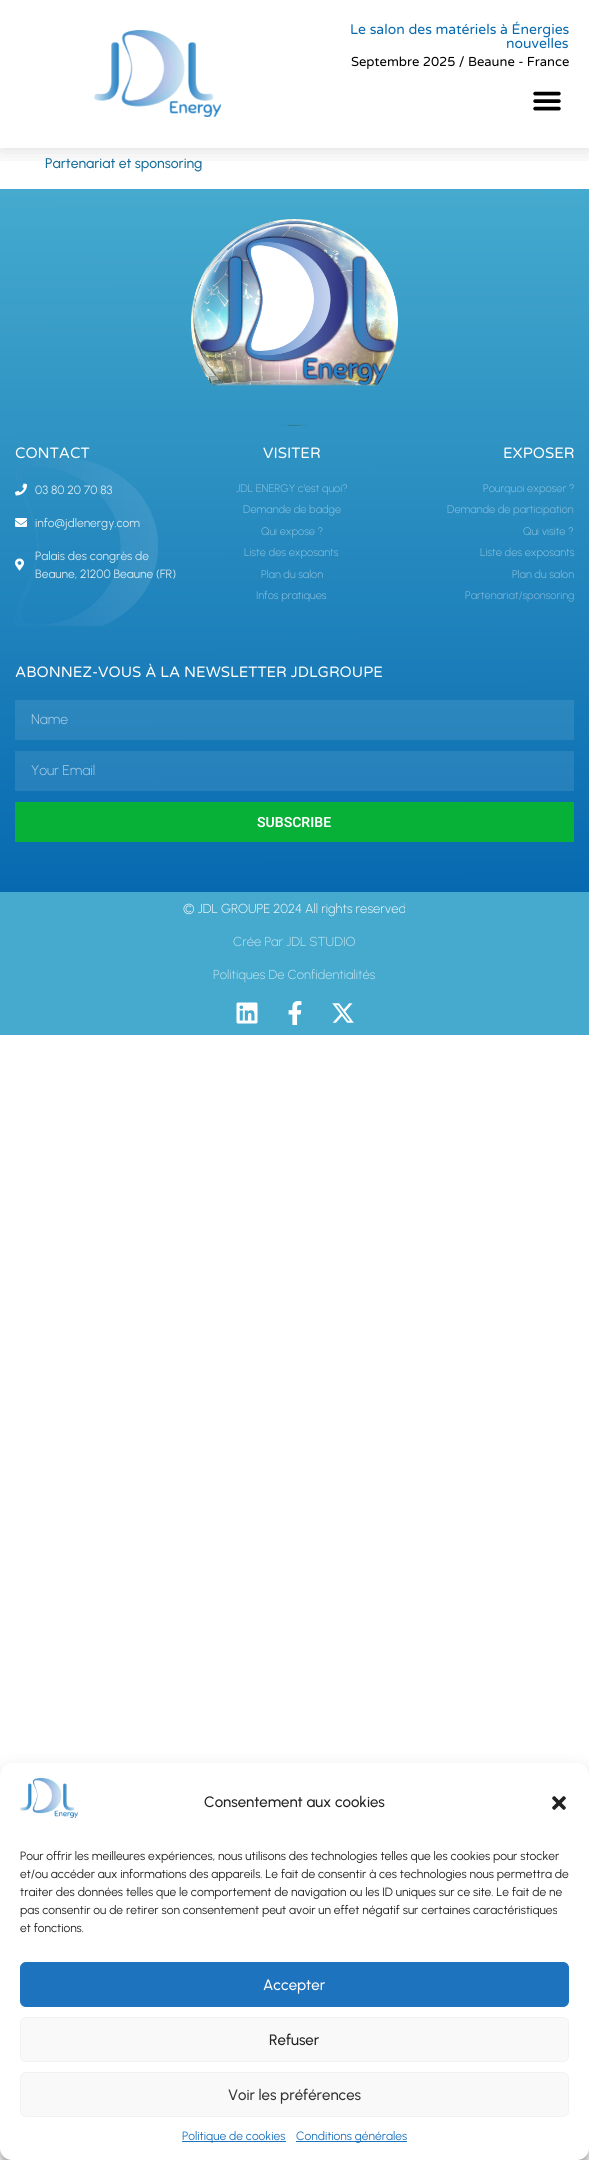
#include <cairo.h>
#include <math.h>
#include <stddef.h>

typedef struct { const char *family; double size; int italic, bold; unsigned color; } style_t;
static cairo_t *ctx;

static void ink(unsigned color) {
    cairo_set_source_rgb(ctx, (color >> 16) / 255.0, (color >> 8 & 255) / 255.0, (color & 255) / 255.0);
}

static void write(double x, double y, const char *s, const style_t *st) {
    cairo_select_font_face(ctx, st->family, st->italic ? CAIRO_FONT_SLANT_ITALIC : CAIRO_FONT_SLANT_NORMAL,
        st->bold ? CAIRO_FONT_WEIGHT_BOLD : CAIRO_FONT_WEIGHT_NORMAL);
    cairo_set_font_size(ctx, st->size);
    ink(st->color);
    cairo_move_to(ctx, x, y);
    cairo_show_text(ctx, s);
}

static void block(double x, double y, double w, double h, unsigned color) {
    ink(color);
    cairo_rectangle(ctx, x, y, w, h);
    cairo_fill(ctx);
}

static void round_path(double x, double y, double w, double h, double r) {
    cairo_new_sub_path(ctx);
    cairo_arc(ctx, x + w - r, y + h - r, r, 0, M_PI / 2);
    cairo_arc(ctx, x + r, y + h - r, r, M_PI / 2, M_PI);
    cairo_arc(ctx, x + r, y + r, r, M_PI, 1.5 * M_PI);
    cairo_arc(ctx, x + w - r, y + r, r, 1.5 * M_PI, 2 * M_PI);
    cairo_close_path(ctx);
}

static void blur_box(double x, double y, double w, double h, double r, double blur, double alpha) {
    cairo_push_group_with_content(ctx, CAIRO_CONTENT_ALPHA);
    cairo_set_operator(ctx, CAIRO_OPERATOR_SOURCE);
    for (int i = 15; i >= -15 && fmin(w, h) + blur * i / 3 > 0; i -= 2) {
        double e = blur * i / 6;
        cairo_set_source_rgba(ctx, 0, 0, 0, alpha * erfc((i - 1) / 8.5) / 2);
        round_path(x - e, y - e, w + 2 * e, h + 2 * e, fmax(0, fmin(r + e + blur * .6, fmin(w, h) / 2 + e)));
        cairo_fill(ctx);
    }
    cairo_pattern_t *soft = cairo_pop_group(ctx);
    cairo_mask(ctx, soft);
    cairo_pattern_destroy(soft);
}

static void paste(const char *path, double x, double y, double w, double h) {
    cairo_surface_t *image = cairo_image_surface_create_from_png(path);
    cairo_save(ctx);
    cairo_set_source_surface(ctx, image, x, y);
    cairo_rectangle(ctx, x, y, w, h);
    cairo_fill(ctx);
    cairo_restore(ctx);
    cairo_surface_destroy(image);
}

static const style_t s1 = {"Varela Round", 14, 0, 0, 0x0769b0};
static const style_t s2 = {"Varela Round", 13, 0, 0, 0x000000};
static const style_t s3 = {"Urbanist Medium", 14, 0, 0, 0x1b709b};
static const style_t s4 = {"Varela Round", 15, 0, 0, 0xffffff};
static const style_t s5 = {"Urbanist", 12, 0, 0, 0xd5e9f3};
static const style_t s6 = {"Urbanist Light", 11, 0, 0, 0x8ac1dd};
static const style_t s7 = {"Urbanist Light", 11, 0, 0, 0x85bbdb};
static const style_t s8 = {"Urbanist Light", 14, 0, 0, 0xaacee5};
static const style_t s9 = {"Roboto SemiBold", 14, 0, 0, 0xffffff};
static const style_t s10 = {"Urbanist Light", 13, 0, 0, 0xecf7fa};
static const style_t s11 = {"Urbanist Light", 13, 0, 0, 0xbce0ed};
static const style_t s12 = {"Urbanist Medium", 15, 0, 0, 0x222222};
static const style_t s13 = {"Urbanist", 12, 0, 0, 0x222222};
static const style_t s14 = {"Urbanist Medium", 15, 0, 0, 0xffffff};
static const style_t s15 = {"Urbanist Medium", 15, 0, 0, 0x333333};
static const style_t s16 = {"Urbanist", 12, 0, 0, 0x1e73be};

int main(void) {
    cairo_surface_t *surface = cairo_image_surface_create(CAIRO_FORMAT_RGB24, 589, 2160);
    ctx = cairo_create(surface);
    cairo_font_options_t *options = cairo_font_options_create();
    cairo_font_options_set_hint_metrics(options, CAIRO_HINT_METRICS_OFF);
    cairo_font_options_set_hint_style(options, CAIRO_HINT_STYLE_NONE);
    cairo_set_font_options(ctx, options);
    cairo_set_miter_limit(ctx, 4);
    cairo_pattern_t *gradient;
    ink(0xffffff);
    cairo_paint(ctx);
    cairo_save(ctx);
    cairo_rectangle(ctx, 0, 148, 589, 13);
    cairo_clip(ctx);
    ink(0x000000);
    blur_box(0, 0, 589, 148, 0, 12, 0.15);
    cairo_restore(ctx);
    paste("pic1.png", 94, 30, 127, 87);
    write(350, 34, "Le salon des matériels à Énergies", &s1);
    write(506, 48, "nouvelles", &s1);
    write(351, 66, "Septembre 2025 / Beaune - France", &s2);
    paste("pic2.png", 533, 91, 28, 20);
    write(45, 168, "Partenariat et sponsoring", &s3);
    gradient = cairo_pattern_create_linear(294, 189, 295, 892);
    cairo_pattern_add_color_stop_rgba(gradient, 0, 0.271, 0.667, 0.808, 1);
    cairo_pattern_add_color_stop_rgba(gradient, 1, 0.027, 0.412, 0.69, 1);
    cairo_set_source(ctx, gradient);
    cairo_pattern_destroy(gradient);
    cairo_rectangle(ctx, 0, 189, 589, 703);
    cairo_fill(ctx);
    gradient = cairo_pattern_create_linear(294, 189, 295, 892);
    cairo_pattern_add_color_stop_rgba(gradient, 0, 0.337, 0.698, 0.824, 1);
    cairo_pattern_add_color_stop_rgba(gradient, 1, 0.114, 0.467, 0.718, 1);
    cairo_set_source(ctx, gradient);
    cairo_pattern_destroy(gradient);
    cairo_rectangle(ctx, 15, 751, 559, 40);
    cairo_fill(ctx);
    cairo_rectangle(ctx, 15, 700, 559, 40);
    cairo_fill(ctx);
    paste("pic3.png", 191, 219, 207, 207);
    paste("pic7.png", 15, 457, 143, 169);
    write(15, 458, "CONTACT", &s4);
    paste("pic4.png", 15, 483, 12, 13);
    write(35, 494, "03 80 20 70 83", &s5);
    paste("pic5.png", 15, 518, 12, 9);
    write(35, 527, "info@jdlenergy.com", &s5);
    paste("pic6.png", 15, 558, 9, 13);
    write(35, 560, "Palais des congrès de", &s5);
    write(35, 578, "Beaune, 21200 Beaune (FR)", &s5);
    write(263, 458, "VISITER", &s4);
    write(236, 492, "JDL ENERGY c'est quoi?", &s6);
    write(243, 513, "Demande de badge", &s6);
    write(261, 535, "Qui expose ?", &s6);
    write(244, 556, "Liste des exposants", &s6);
    write(261, 578, "Plan du salon", &s6);
    write(256, 599, "Infos pratiques", &s6);
    write(503, 458, "EXPOSER", &s4);
    write(483, 492, "Pourquoi exposer ?", &s6);
    write(447, 513, "Demande de participation", &s6);
    write(523, 535, "Qui visite ?", &s6);
    write(480, 556, "Liste des exposants", &s6);
    write(512, 578, "Plan du salon", &s6);
    write(465, 599, "Partenariat/sponsoring", &s7);
    write(15, 677, "ABONNEZ-VOUS À LA NEWSLETTER JDLGROUPE", &s4);
    write(31, 724, "Name", &s8);
    write(31, 775, "Your Email", &s8);
    block(15, 802, 559, 40, 0x07b037);
    write(257, 827, "SUBSCRIBE", &s9);
    block(0, 892, 589, 143, 0x45aace);
    write(183, 913, "© JDL GROUPE 2024 All rights reserved", &s10);
    write(233, 946, "Crée Par JDL STUDIO", &s11);
    write(213, 979, "Politiques De Confidentialités", &s11);
    paste("pic8.png", 236, 1002, 22, 22);
    paste("pic9.png", 288, 1001, 14, 24);
    paste("pic10.png", 332, 1003, 22, 20);
    ink(0x000000);
    blur_box(0, 1769, 589, 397, 12, 3, 0.23);
    blur_box(0, 1773, 589, 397, 12, 10, 0.19);
    ink(0xffffff);
    round_path(0, 1763, 589, 397, 12);
    cairo_fill(ctx);
    paste("pic11.png", 20, 1778, 58, 40);
    write(204, 1807, "Consentement aux cookies", &s12);
    paste("pic12.png", 552, 1796, 14, 14);
    write(20, 1860, "Pour offrir les meilleures expériences, nous utilisons des technologies telles que les cookies pour stocker", &s13);
    write(20, 1878, "et/ou accéder aux informations des appareils. Le fait de consentir à ces technologies nous permettra de", &s13);
    write(20, 1896, "traiter des données telles que le comportement de navigation ou les ID uniques sur ce site. Le fait de ne", &s13);
    write(20, 1914, "pas consentir ou de retirer son consentement peut avoir un effet négatif sur certaines caractéristiques", &s13);
    write(20, 1932, "et fonctions.", &s13);
    ink(0x1e73be);
    round_path(20.5, 1962.5, 548, 44, 5.5);
    cairo_fill_preserve(ctx);
    cairo_set_line_width(ctx, 1);
    cairo_stroke(ctx);
    write(263, 1990, "Accepter", &s14);
    ink(0xf9f9f9);
    round_path(20.5, 2017.5, 548, 44, 5.5);
    cairo_fill_preserve(ctx);
    ink(0xf2f2f2);
    cairo_stroke(ctx);
    write(269, 2045, "Refuser", &s12);
    ink(0xf9f9f9);
    round_path(20.5, 2072.5, 548, 44, 5.5);
    cairo_fill_preserve(ctx);
    ink(0xf2f2f2);
    cairo_stroke(ctx);
    write(228, 2100, "Voir les préférences", &s15);
    block(182, 2141, 104, 1, 0x1e73be);
    write(182, 2140, "Politique de cookies", &s16);
    block(296, 2141, 111, 1, 0x1e73be);
    write(296, 2140, "Conditions générales", &s16);
    cairo_surface_write_to_png(surface, "screenshot.png");
    cairo_font_options_destroy(options);
    cairo_destroy(ctx);
    cairo_surface_destroy(surface);
    return 0;
}
